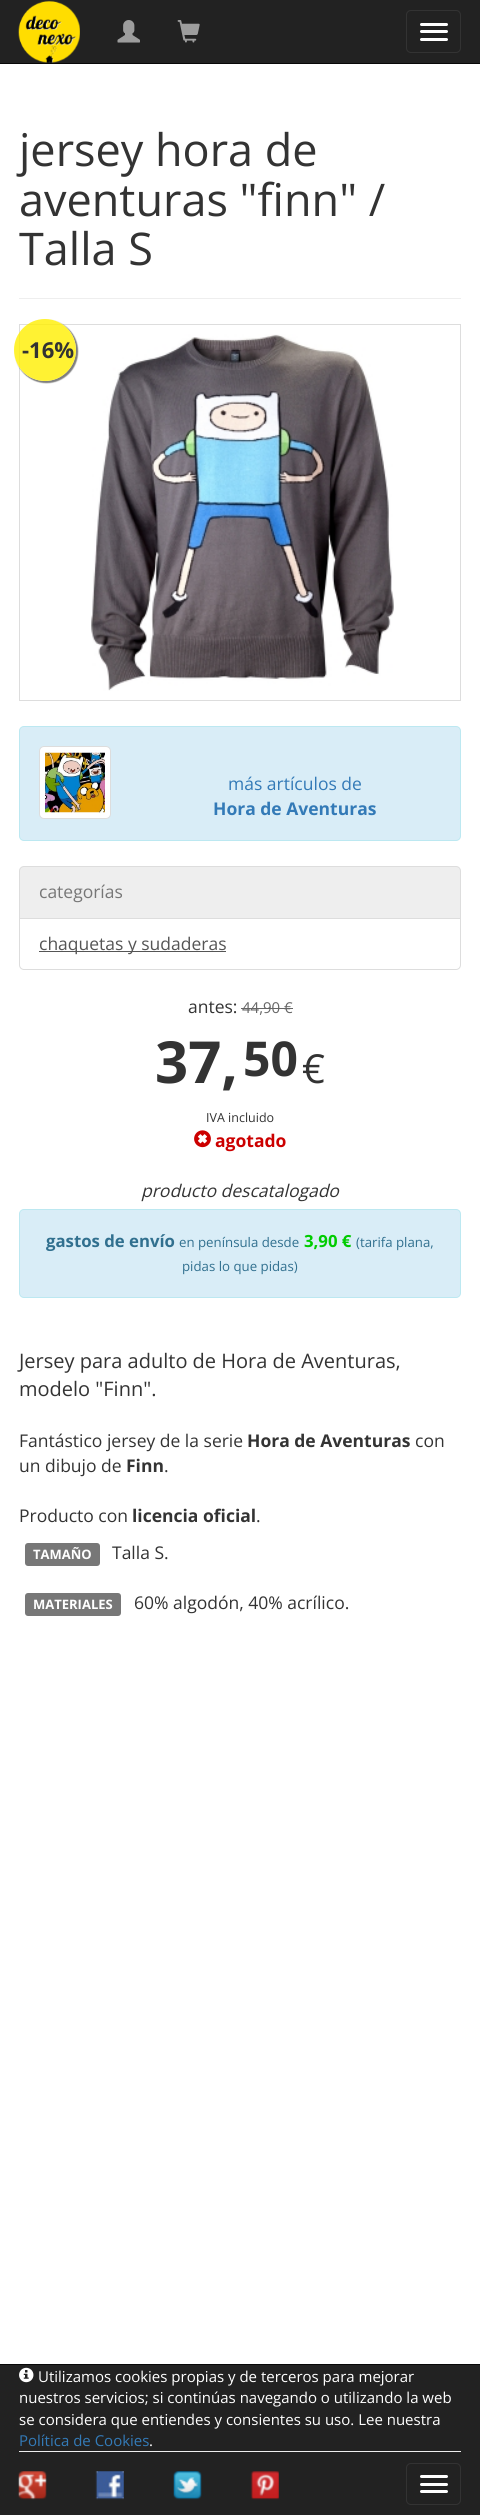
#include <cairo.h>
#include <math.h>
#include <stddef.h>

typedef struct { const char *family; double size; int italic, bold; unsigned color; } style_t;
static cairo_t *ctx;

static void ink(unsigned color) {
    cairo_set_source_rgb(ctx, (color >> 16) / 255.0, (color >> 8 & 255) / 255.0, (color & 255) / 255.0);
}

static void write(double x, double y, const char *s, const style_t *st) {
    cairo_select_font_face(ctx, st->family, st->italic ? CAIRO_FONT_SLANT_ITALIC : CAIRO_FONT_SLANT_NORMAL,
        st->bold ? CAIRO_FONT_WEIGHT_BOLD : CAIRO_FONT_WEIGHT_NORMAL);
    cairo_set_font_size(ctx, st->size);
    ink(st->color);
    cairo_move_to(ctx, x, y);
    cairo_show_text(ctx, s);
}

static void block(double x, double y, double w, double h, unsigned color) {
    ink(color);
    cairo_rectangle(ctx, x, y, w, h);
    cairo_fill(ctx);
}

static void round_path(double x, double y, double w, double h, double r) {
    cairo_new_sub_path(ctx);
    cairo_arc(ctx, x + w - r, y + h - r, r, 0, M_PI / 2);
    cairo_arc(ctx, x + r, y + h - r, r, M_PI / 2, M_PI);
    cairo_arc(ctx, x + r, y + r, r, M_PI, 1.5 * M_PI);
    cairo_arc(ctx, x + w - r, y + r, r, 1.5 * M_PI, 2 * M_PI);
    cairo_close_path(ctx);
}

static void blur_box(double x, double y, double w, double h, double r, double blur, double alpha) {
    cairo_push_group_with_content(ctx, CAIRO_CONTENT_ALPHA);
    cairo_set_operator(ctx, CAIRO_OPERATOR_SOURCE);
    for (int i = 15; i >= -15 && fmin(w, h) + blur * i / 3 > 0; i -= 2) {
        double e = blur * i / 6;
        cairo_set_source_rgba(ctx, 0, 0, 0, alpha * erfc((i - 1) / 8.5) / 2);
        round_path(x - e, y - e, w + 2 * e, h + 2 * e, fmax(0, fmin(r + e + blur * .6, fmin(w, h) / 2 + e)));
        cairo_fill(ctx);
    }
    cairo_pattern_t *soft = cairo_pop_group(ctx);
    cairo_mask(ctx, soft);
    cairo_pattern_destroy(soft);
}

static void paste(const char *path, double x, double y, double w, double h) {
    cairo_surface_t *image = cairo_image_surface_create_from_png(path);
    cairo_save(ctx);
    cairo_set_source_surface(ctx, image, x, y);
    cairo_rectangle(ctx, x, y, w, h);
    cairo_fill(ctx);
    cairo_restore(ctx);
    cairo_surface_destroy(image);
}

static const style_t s1 = {"Open Sans", 45, 0, 0, 0x333333};
static const style_t s2 = {"Open Sans", 22, 0, 1, 0x333333};
static const style_t s3 = {"Open Sans", 17.5, 0, 0, 0x337ab7};
static const style_t s4 = {"Open Sans", 17.5, 0, 1, 0x337ab7};
static const style_t s5 = {"Open Sans", 17.5, 0, 0, 0x777777};
static const style_t s6 = {"Open Sans", 17.5, 0, 0, 0x555555};
static const style_t s7 = {"Open Sans", 17.5, 0, 0, 0x333333};
static const style_t s8 = {"Open Sans", 15, 0, 0, 0x666666};
static const style_t s9 = {"Open Sans", 58, 0, 1, 0x333333};
static const style_t s10 = {"Open Sans", 48, 0, 1, 0x333333};
static const style_t s11 = {"Open Sans", 40, 0, 0, 0x333333};
static const style_t s12 = {"Open Sans", 12.5, 0, 0, 0x333333};
static const style_t s13 = {"Open Sans", 17.5, 0, 1, 0xcc0000};
static const style_t s14 = {"Open Sans", 17.5, 1, 0, 0x333333};
static const style_t s15 = {"Open Sans", 16.75, 0, 1, 0x31708f};
static const style_t s16 = {"Open Sans", 13.25, 0, 0, 0x31708f};
static const style_t s17 = {"Open Sans", 16.75, 0, 1, 0x00cc00};
static const style_t s18 = {"Open Sans", 20, 0, 0, 0x333333};
static const style_t s19 = {"Open Sans", 17.5, 0, 1, 0x333333};
static const style_t s20 = {"Open Sans", 13, 0, 1, 0xffffff};
static const style_t s21 = {"Open Sans", 15, 0, 0, 0xffffff};
static const style_t s22 = {"Open Sans", 15, 0, 0, 0x337ab7};

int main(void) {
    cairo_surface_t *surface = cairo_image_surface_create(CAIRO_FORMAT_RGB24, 480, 2515);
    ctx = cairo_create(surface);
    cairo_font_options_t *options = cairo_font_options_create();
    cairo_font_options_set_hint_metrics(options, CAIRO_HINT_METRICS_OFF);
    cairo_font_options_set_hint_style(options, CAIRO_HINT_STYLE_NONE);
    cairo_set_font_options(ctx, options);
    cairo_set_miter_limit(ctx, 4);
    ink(0xffffff);
    cairo_paint(ctx);
    block(0, 0, 480, 63, 0x222222);
    block(0, 63, 480, 1, 0x080808);
    paste("pic1.png", 18, 0, 62, 63);
    paste("pic2.png", 117, 20, 23, 23);
    paste("pic3.png", 177, 20, 23, 23);
    round_path(406.5, 10.5, 54, 42, 4.5);
    ink(0x333333);
    cairo_set_line_width(ctx, 1);
    cairo_stroke(ctx);
    ink(0xffffff);
    round_path(420, 23, 28, 3, 1.5);
    cairo_fill(ctx);
    round_path(420, 30, 28, 3, 1.5);
    cairo_fill(ctx);
    round_path(420, 38, 28, 3, 1.5);
    cairo_fill(ctx);
    block(19, 298, 442, 1, 0xeeeeee);
    write(19, 166, "jersey hora de", &s1);
    write(19, 216, "aventuras \"finn\" /", &s1);
    write(19, 265, "Talla S", &s1);
    cairo_rectangle(ctx, 19.5, 324.5, 441, 376);
    ink(0xdddddd);
    cairo_stroke(ctx);
    cairo_save(ctx);
    cairo_set_fill_rule(ctx, CAIRO_FILL_RULE_EVEN_ODD);
    cairo_new_path(ctx);
    cairo_move_to(ctx, 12, 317);
    cairo_line_to(ctx, 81, 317);
    cairo_line_to(ctx, 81, 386);
    cairo_line_to(ctx, 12, 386);
    cairo_close_path(ctx);
    cairo_move_to(ctx, 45, 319);
    cairo_curve_to(ctx, 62, 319, 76, 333, 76, 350);
    cairo_curve_to(ctx, 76, 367, 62, 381, 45, 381);
    cairo_curve_to(ctx, 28, 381, 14, 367, 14, 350);
    cairo_curve_to(ctx, 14, 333, 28, 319, 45, 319);
    cairo_close_path(ctx);
    cairo_clip(ctx);
    ink(0x5e5e5e);
    blur_box(15, 320, 63, 63, 31.5, 0.5, 0.8);
    cairo_restore(ctx);
    cairo_set_source_rgba(ctx, 1, 0.933, 0, 0.8);
    cairo_arc(ctx, 45, 350, 31, 0, 2 * M_PI);
    cairo_fill(ctx);
    write(22, 358, "-16%", &s2);
    paste("pic4.png", 91, 334, 303, 357);
    ink(0xd9edf7);
    round_path(19.5, 726.5, 441, 114, 4.5);
    cairo_fill_preserve(ctx);
    ink(0xbce8f1);
    cairo_stroke(ctx);
    ink(0xffffff);
    round_path(39.5, 746.5, 71, 72, 4.5);
    cairo_fill_preserve(ctx);
    ink(0xdddddd);
    cairo_stroke(ctx);
    paste("pic5.png", 45, 752, 60, 61);
    write(228, 790, "más artículos de", &s3);
    write(213, 815, "Hora de Aventuras", &s4);
    ink(0xeeeeee);
    cairo_new_path(ctx);
    cairo_move_to(ctx, 24, 866.5);
    cairo_line_to(ctx, 456, 866.5);
    cairo_curve_to(ctx, 458.5, 866.5, 460.5, 868.5, 460.5, 871);
    cairo_line_to(ctx, 460.5, 918.5);
    cairo_line_to(ctx, 19.5, 918.5);
    cairo_line_to(ctx, 19.5, 871);
    cairo_curve_to(ctx, 19.5, 868.5, 21.5, 866.5, 24, 866.5);
    cairo_close_path(ctx);
    cairo_fill_preserve(ctx);
    ink(0xdddddd);
    cairo_stroke(ctx);
    write(39, 898, "categorías", &s5);
    ink(0xffffff);
    cairo_new_path(ctx);
    cairo_move_to(ctx, 19.5, 918.5);
    cairo_line_to(ctx, 460.5, 918.5);
    cairo_line_to(ctx, 460.5, 965);
    cairo_curve_to(ctx, 460.5, 967.5, 458.5, 969.5, 456, 969.5);
    cairo_line_to(ctx, 24, 969.5);
    cairo_curve_to(ctx, 21.5, 969.5, 19.5, 967.5, 19.5, 965);
    cairo_close_path(ctx);
    cairo_fill_preserve(ctx);
    ink(0xdddddd);
    cairo_stroke(ctx);
    block(39, 951, 187, 1, 0x555555);
    write(39, 950, "chaquetas y sudaderas", &s6);
    write(188, 1013, "antes:", &s7);
    write(242, 1013, "44,90 €", &s8);
    block(241, 1008, 52, 1, 0x666666);
    write(155, 1083, "37,", &s9);
    write(243, 1076, "50", &s10);
    write(302, 1083, "€", &s11);
    write(206, 1122, "IVA incluido", &s12);
    paste("pic6.png", 194, 1130, 17, 18);
    write(215, 1147, "agotado", &s13);
    write(141, 1197, "producto descatalogado", &s14);
    ink(0xd9edf7);
    round_path(19.5, 1209.5, 441, 88, 4.5);
    cairo_fill_preserve(ctx);
    ink(0xbce8f1);
    cairo_stroke(ctx);
    write(46, 1247, "gastos de envío", &s15);
    write(179, 1247, "en península desde", &s16);
    write(304, 1247, "3,90 €", &s17);
    write(356, 1247, "(tarifa plana,", &s16);
    write(182, 1271, "pidas lo que pidas)", &s16);
    write(19, 1368, "Jersey para adulto de Hora de Aventuras,", &s18);
    write(19, 1396, "modelo \"Finn\".", &s18);
    write(19, 1447, "Fantástico jersey de la serie", &s7);
    write(247, 1447, "Hora de Aventuras", &s19);
    write(415, 1447, "con", &s7);
    write(19, 1472, "un dibujo de", &s7);
    write(126, 1472, "Finn", &s19);
    write(164, 1472, ".", &s7);
    write(19, 1522, "Producto con", &s7);
    write(132, 1522, "licencia oficial", &s19);
    write(256, 1522, ".", &s7);
    ink(0x777777);
    round_path(25, 1543, 75, 23, 3);
    cairo_fill(ctx);
    write(33, 1559, "TAMAÑO", &s20);
    write(112, 1559, "Talla S.", &s7);
    ink(0x777777);
    round_path(25, 1593, 96, 23, 3);
    cairo_fill(ctx);
    write(33, 1609, "MATERIALES", &s20);
    write(134, 1609, "60% algodón, 40% acrílico.", &s7);
    block(0, 2365, 480, 150, 0x222222);
    block(0, 2364, 480, 1, 0x080808);
    block(19, 2451, 442, 1, 0xeeeeee);
    paste("pic7.png", 19, 2367, 15, 16);
    write(38, 2382, "Utilizamos cookies propias y de terceros para mejorar", &s21);
    write(19, 2403, "nuestros servicios; si continúas navegando o utilizando la web", &s21);
    write(19, 2425, "se considera que entiendes y consientes su uso. Lee nuestra", &s21);
    write(19, 2446, "Política de Cookies", &s22);
    write(149, 2446, ".", &s21);
    paste("pic8.png", 18, 2471, 29, 29);
    paste("pic9.png", 95, 2471, 29, 29);
    paste("pic10.png", 173, 2471, 29, 29);
    paste("pic11.png", 250, 2471, 29, 29);
    round_path(406.5, 2463.5, 54, 41, 4.5);
    ink(0x333333);
    cairo_stroke(ctx);
    ink(0xffffff);
    round_path(420, 2475, 28, 3, 1.5);
    cairo_fill(ctx);
    round_path(420, 2483, 28, 3, 1.5);
    cairo_fill(ctx);
    round_path(420, 2490, 28, 3, 1.5);
    cairo_fill(ctx);
    cairo_surface_write_to_png(surface, "screenshot.png");
    cairo_font_options_destroy(options);
    cairo_destroy(ctx);
    cairo_surface_destroy(surface);
    return 0;
}
